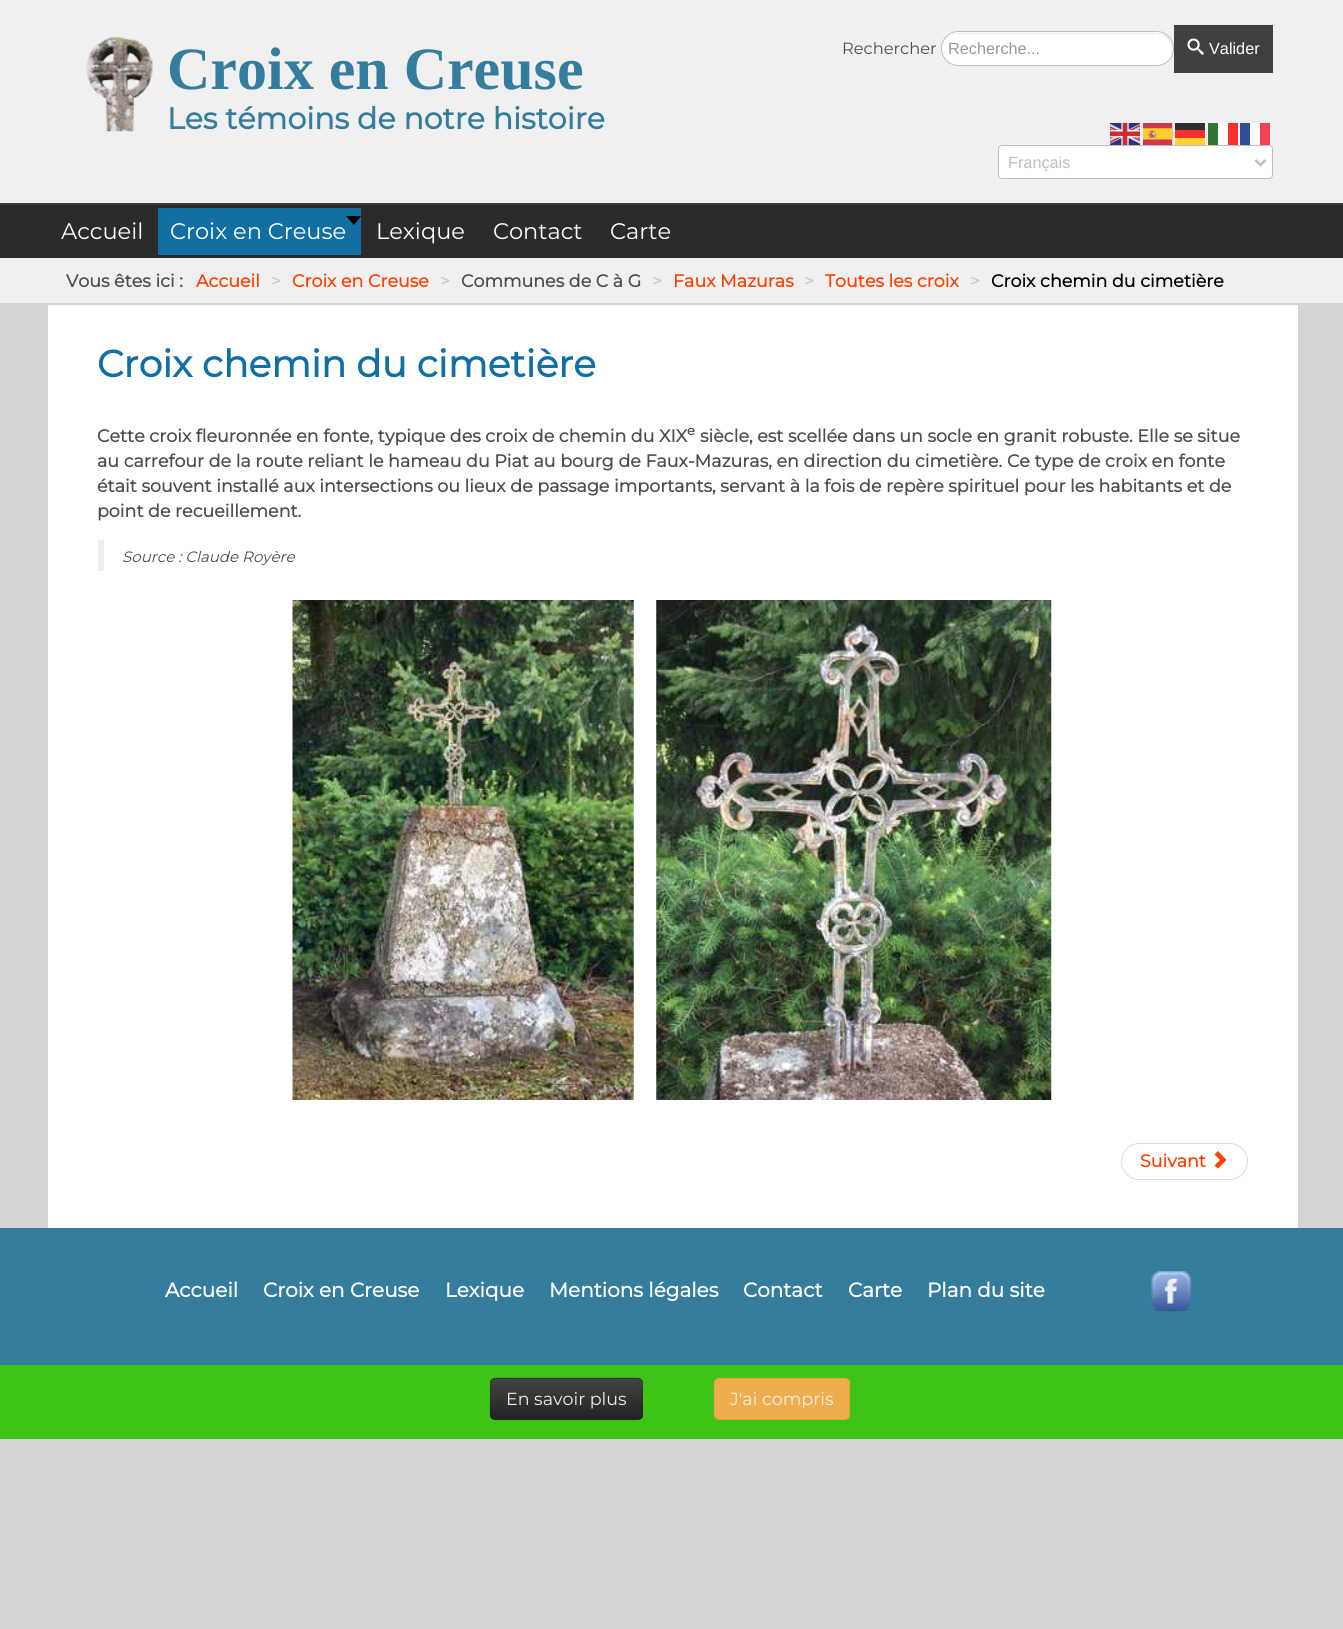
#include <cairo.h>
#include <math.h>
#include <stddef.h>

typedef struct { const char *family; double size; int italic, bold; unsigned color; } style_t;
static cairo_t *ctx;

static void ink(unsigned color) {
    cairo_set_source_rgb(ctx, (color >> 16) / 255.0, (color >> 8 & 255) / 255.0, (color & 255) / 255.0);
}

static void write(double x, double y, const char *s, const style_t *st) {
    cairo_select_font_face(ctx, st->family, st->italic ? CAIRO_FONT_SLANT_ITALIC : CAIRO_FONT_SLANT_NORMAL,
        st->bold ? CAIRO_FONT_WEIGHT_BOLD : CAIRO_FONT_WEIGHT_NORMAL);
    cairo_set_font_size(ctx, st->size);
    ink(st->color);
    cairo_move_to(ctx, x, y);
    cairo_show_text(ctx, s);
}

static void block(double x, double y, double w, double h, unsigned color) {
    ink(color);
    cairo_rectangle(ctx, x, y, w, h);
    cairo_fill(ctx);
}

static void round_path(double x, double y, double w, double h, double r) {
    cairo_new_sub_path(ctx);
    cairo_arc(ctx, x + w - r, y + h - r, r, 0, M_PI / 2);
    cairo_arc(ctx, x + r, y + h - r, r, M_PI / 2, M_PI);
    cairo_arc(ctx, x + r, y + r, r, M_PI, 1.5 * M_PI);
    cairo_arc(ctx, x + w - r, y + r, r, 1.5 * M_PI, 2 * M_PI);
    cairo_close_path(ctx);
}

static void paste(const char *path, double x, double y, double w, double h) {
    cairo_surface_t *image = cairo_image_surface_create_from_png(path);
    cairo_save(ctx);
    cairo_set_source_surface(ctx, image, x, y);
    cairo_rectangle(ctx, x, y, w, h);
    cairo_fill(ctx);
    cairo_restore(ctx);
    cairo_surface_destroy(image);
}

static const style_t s1 = {"Liberation Serif", 60, 0, 1, 0x357d9c};
static const style_t s2 = {"Montserrat", 30, 0, 1, 0x357d9c};
static const style_t s3 = {"Montserrat Thin", 16.25, 0, 0, 0x4d4d4d};
static const style_t s4 = {"Liberation Sans", 16.25, 0, 0, 0x999999};
static const style_t s5 = {"Liberation Sans", 16.25, 0, 0, 0xffffff};
static const style_t s6 = {"Liberation Sans", 16.25, 0, 0, 0xbebebe};
static const style_t s7 = {"Montserrat Thin", 22.5, 0, 0, 0xffffff};
static const style_t s8 = {"Montserrat", 17.5, 0, 1, 0x4d4d4d};
static const style_t s9 = {"Montserrat", 17.5, 0, 1, 0xff4000};
static const style_t s10 = {"Montserrat", 17.5, 0, 1, 0xcccccc};
static const style_t s11 = {"Montserrat", 17.5, 0, 1, 0x000000};
static const style_t s12 = {"Montserrat", 37.5, 0, 1, 0x126fa1};
static const style_t s13 = {"Montserrat", 13, 0, 1, 0x4d4d4d};
static const style_t s14 = {"Montserrat Thin", 15, 1, 0, 0x4d4d4d};
static const style_t s15 = {"Montserrat", 20, 0, 1, 0xffffff};
static const style_t s16 = {"Montserrat Thin", 17.5, 0, 0, 0xeeeeee};

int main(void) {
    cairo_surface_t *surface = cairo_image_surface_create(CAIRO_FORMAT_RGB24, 1343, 1629);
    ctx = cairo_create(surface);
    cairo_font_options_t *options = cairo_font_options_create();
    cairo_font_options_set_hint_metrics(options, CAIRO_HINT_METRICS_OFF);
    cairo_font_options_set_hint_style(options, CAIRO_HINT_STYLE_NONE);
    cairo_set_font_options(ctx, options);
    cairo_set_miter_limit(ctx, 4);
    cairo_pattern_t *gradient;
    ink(0xd4d4d4);
    cairo_paint(ctx);
    block(0, 0, 1343, 203, 0xf0f0f0);
    block(0, 203, 1343, 2, 0x3b3b3b);
    paste("pic1.png", 86, 36, 67, 96);
    write(167, 89, "Croix en Creuse", &s1);
    write(167, 129, "Les témoins de notre histoire", &s2);
    write(842, 54, "Rechercher", &s3);
    ink(0xffffff);
    round_path(941, 31, 233, 35, 17.5);
    cairo_fill(ctx);
    ink(0xececec);
    cairo_new_path(ctx);
    cairo_move_to(ctx, 959, 34);
    cairo_line_to(ctx, 1156, 34);
    cairo_curve_to(ctx, 1165, 34, 1172, 41, 1172, 50);
    cairo_curve_to(ctx, 1172, 54, 1171, 57, 1168, 60);
    cairo_curve_to(ctx, 1171, 57, 1173, 53, 1173, 49);
    cairo_curve_to(ctx, 1173, 40, 1166, 33, 1157, 33);
    cairo_line_to(ctx, 959, 33);
    cairo_curve_to(ctx, 953, 33, 949, 36, 946, 40);
    cairo_curve_to(ctx, 949, 36, 954, 34, 959, 34);
    cairo_close_path(ctx);
    cairo_fill(ctx);
    round_path(941.5, 31.5, 232, 34, 17);
    ink(0xbebebe);
    cairo_set_line_width(ctx, 1);
    cairo_stroke(ctx);
    write(948, 54, "Recherche...", &s4);
    block(1174, 25, 99, 48, 0x404040);
    paste("pic2.png", 1187, 38, 17, 17);
    write(1209, 54, "Valider", &s5);
    paste("pic3.png", 1110, 123, 30, 22);
    paste("pic4.png", 1143, 123, 30, 22);
    block(1175, 123, 30, 7, 0x303030);
    block(1208, 123, 10, 22, 0x307630);
    block(1218, 123, 10, 22, 0xfcfcfc);
    block(1228, 123, 10, 22, 0xfa3030);
    block(1240, 123, 10, 22, 0x304e96);
    block(1250, 123, 10, 22, 0xfcfcfc);
    block(1260, 123, 10, 22, 0xf24356);
    block(1175, 130, 30, 8, 0xfc3030);
    block(1175, 138, 30, 7, 0xfcd330);
    ink(0xffffff);
    round_path(998.5, 145.5, 274, 33, 3.5);
    cairo_fill_preserve(ctx);
    ink(0xbebebe);
    cairo_stroke(ctx);
    cairo_new_path(ctx);
    cairo_move_to(ctx, 1255.5, 160);
    cairo_line_to(ctx, 1260.5, 165);
    cairo_line_to(ctx, 1265.5, 160);
    cairo_set_line_width(ctx, 2.5);
    cairo_stroke(ctx);
    write(1008, 168, "Français", &s6);
    block(0, 205, 1343, 53, 0x2b2b2b);
    write(61, 239, "Accueil", &s7);
    block(158, 208, 203, 47, 0x126fa1);
    ink(0x000000);
    cairo_new_path(ctx);
    cairo_move_to(ctx, 346, 216);
    cairo_line_to(ctx, 361, 216);
    cairo_line_to(ctx, 354, 225);
    cairo_close_path(ctx);
    cairo_fill(ctx);
    write(170, 239, "Croix en Creuse", &s7);
    write(376, 239, "Lexique", &s7);
    write(493, 239, "Contact", &s7);
    write(610, 239, "Carte", &s7);
    block(0, 258, 1343, 45, 0xf0f0f0);
    write(66, 287, "Vous êtes ici :", &s8);
    write(196, 287, "Accueil", &s9);
    write(271, 287, ">", &s10);
    write(292, 287, "Croix en Creuse", &s9);
    write(440, 287, ">", &s10);
    write(461, 287, "Communes de C à G", &s8);
    write(652, 287, ">", &s10);
    write(673, 287, "Faux Mazuras", &s9);
    write(804, 287, ">", &s10);
    write(825, 287, "Toutes les croix", &s9);
    write(970, 287, ">", &s10);
    write(991, 287, "Croix chemin du cimetière", &s11);
    block(48, 305, 1250, 923, 0xffffff);
    write(97, 377, "Croix chemin du cimetière", &s12);
    write(97, 442, "Cette croix fleuronnée en fonte, typique des croix de chemin du XIX", &s8);
    write(687, 435, "e", &s13);
    write(700, 442, "siècle, est scellée dans un socle en granit robuste. Elle se situe", &s8);
    write(97, 467, "au carrefour de la route reliant le hameau du Piat au bourg de Faux-Mazuras, en direction du cimetière. Ce type de croix en fonte", &s8);
    write(97, 492, "était souvent installé aux intersections ou lieux de passage importants, servant à la fois de repère spirituel pour les habitants et de", &s8);
    write(97, 517, "point de recueillement.", &s8);
    block(98, 540, 6, 31, 0xeeeeee);
    write(122, 562, "Source : Claude Royère", &s14);
    paste("pic5.png", 292, 600, 342, 500);
    paste("pic6.png", 656, 600, 396, 500);
    round_path(1121.5, 1143.5, 126, 36, 18);
    ink(0xdddddd);
    cairo_set_line_width(ctx, 1);
    cairo_stroke(ctx);
    write(1140, 1167, "Suivant", &s9);
    cairo_new_path(ctx);
    cairo_move_to(ctx, 1218, 1151);
    cairo_line_to(ctx, 1226.5, 1160);
    cairo_line_to(ctx, 1218, 1168.5);
    cairo_line_to(ctx, 1214.5, 1165.5);
    cairo_line_to(ctx, 1220, 1160);
    cairo_line_to(ctx, 1214.5, 1154.5);
    cairo_close_path(ctx);
    cairo_fill(ctx);
    block(0, 1228, 1343, 137, 0x357d9c);
    write(165, 1297, "Accueil", &s15);
    write(263, 1297, "Croix en Creuse", &s15);
    write(445, 1297, "Lexique", &s15);
    write(549, 1297, "Mentions légales", &s15);
    write(743, 1297, "Contact", &s15);
    write(848, 1297, "Carte", &s15);
    write(927, 1297, "Plan du site", &s15);
    paste("pic7.png", 1151, 1271, 41, 41);
    block(0, 1365, 1343, 74, 0x3ec416);
    ink(0x363636);
    round_path(490, 1378, 153, 42, 5);
    cairo_fill(ctx);
    cairo_save(ctx);
    round_path(490, 1378, 153, 42, 5);
    cairo_clip(ctx);
    gradient = cairo_pattern_create_linear(566, 1379, 566, 1419);
    cairo_pattern_add_color_stop_rgba(gradient, 0, 0.267, 0.267, 0.267, 1);
    cairo_pattern_add_color_stop_rgba(gradient, 1, 0.133, 0.133, 0.133, 1);
    cairo_set_source(ctx, gradient);
    cairo_pattern_destroy(gradient);
    cairo_rectangle(ctx, 490, 1379, 153, 40);
    cairo_fill(ctx);
    cairo_restore(ctx);
    cairo_new_path(ctx);
    cairo_move_to(ctx, 640.5, 1418);
    cairo_curve_to(ctx, 640, 1419, 638.5, 1419.5, 637.5, 1419.5);
    cairo_line_to(ctx, 495, 1419.5);
    cairo_curve_to(ctx, 494, 1419.5, 492.5, 1419, 492, 1418);
    cairo_set_source_rgba(ctx, 0, 0, 0, 0.25);
    cairo_set_line_width(ctx, 1.2);
    cairo_stroke(ctx);
    cairo_new_path(ctx);
    cairo_move_to(ctx, 492, 1418);
    cairo_curve_to(ctx, 489, 1415.5, 490.5, 1407, 490.5, 1404);
    cairo_curve_to(ctx, 490.5, 1372.5, 485, 1378, 519, 1378);
    cairo_line_to(ctx, 614, 1378);
    cairo_curve_to(ctx, 647.5, 1378, 642, 1372.5, 642, 1404);
    cairo_curve_to(ctx, 642, 1407, 643.5, 1415.5, 640.5, 1418);
    cairo_set_source_rgba(ctx, 0, 0, 0, 0.1);
    cairo_stroke(ctx);
    write(506, 1405, "En savoir plus", &s16);
    ink(0xf0ad4e);
    round_path(714.5, 1378.5, 135, 41, 4.5);
    cairo_fill_preserve(ctx);
    ink(0xeea236);
    cairo_set_line_width(ctx, 1);
    cairo_stroke(ctx);
    write(730, 1405, "J'ai compris", &s16);
    cairo_surface_write_to_png(surface, "screenshot.png");
    cairo_font_options_destroy(options);
    cairo_destroy(ctx);
    cairo_surface_destroy(surface);
    return 0;
}
